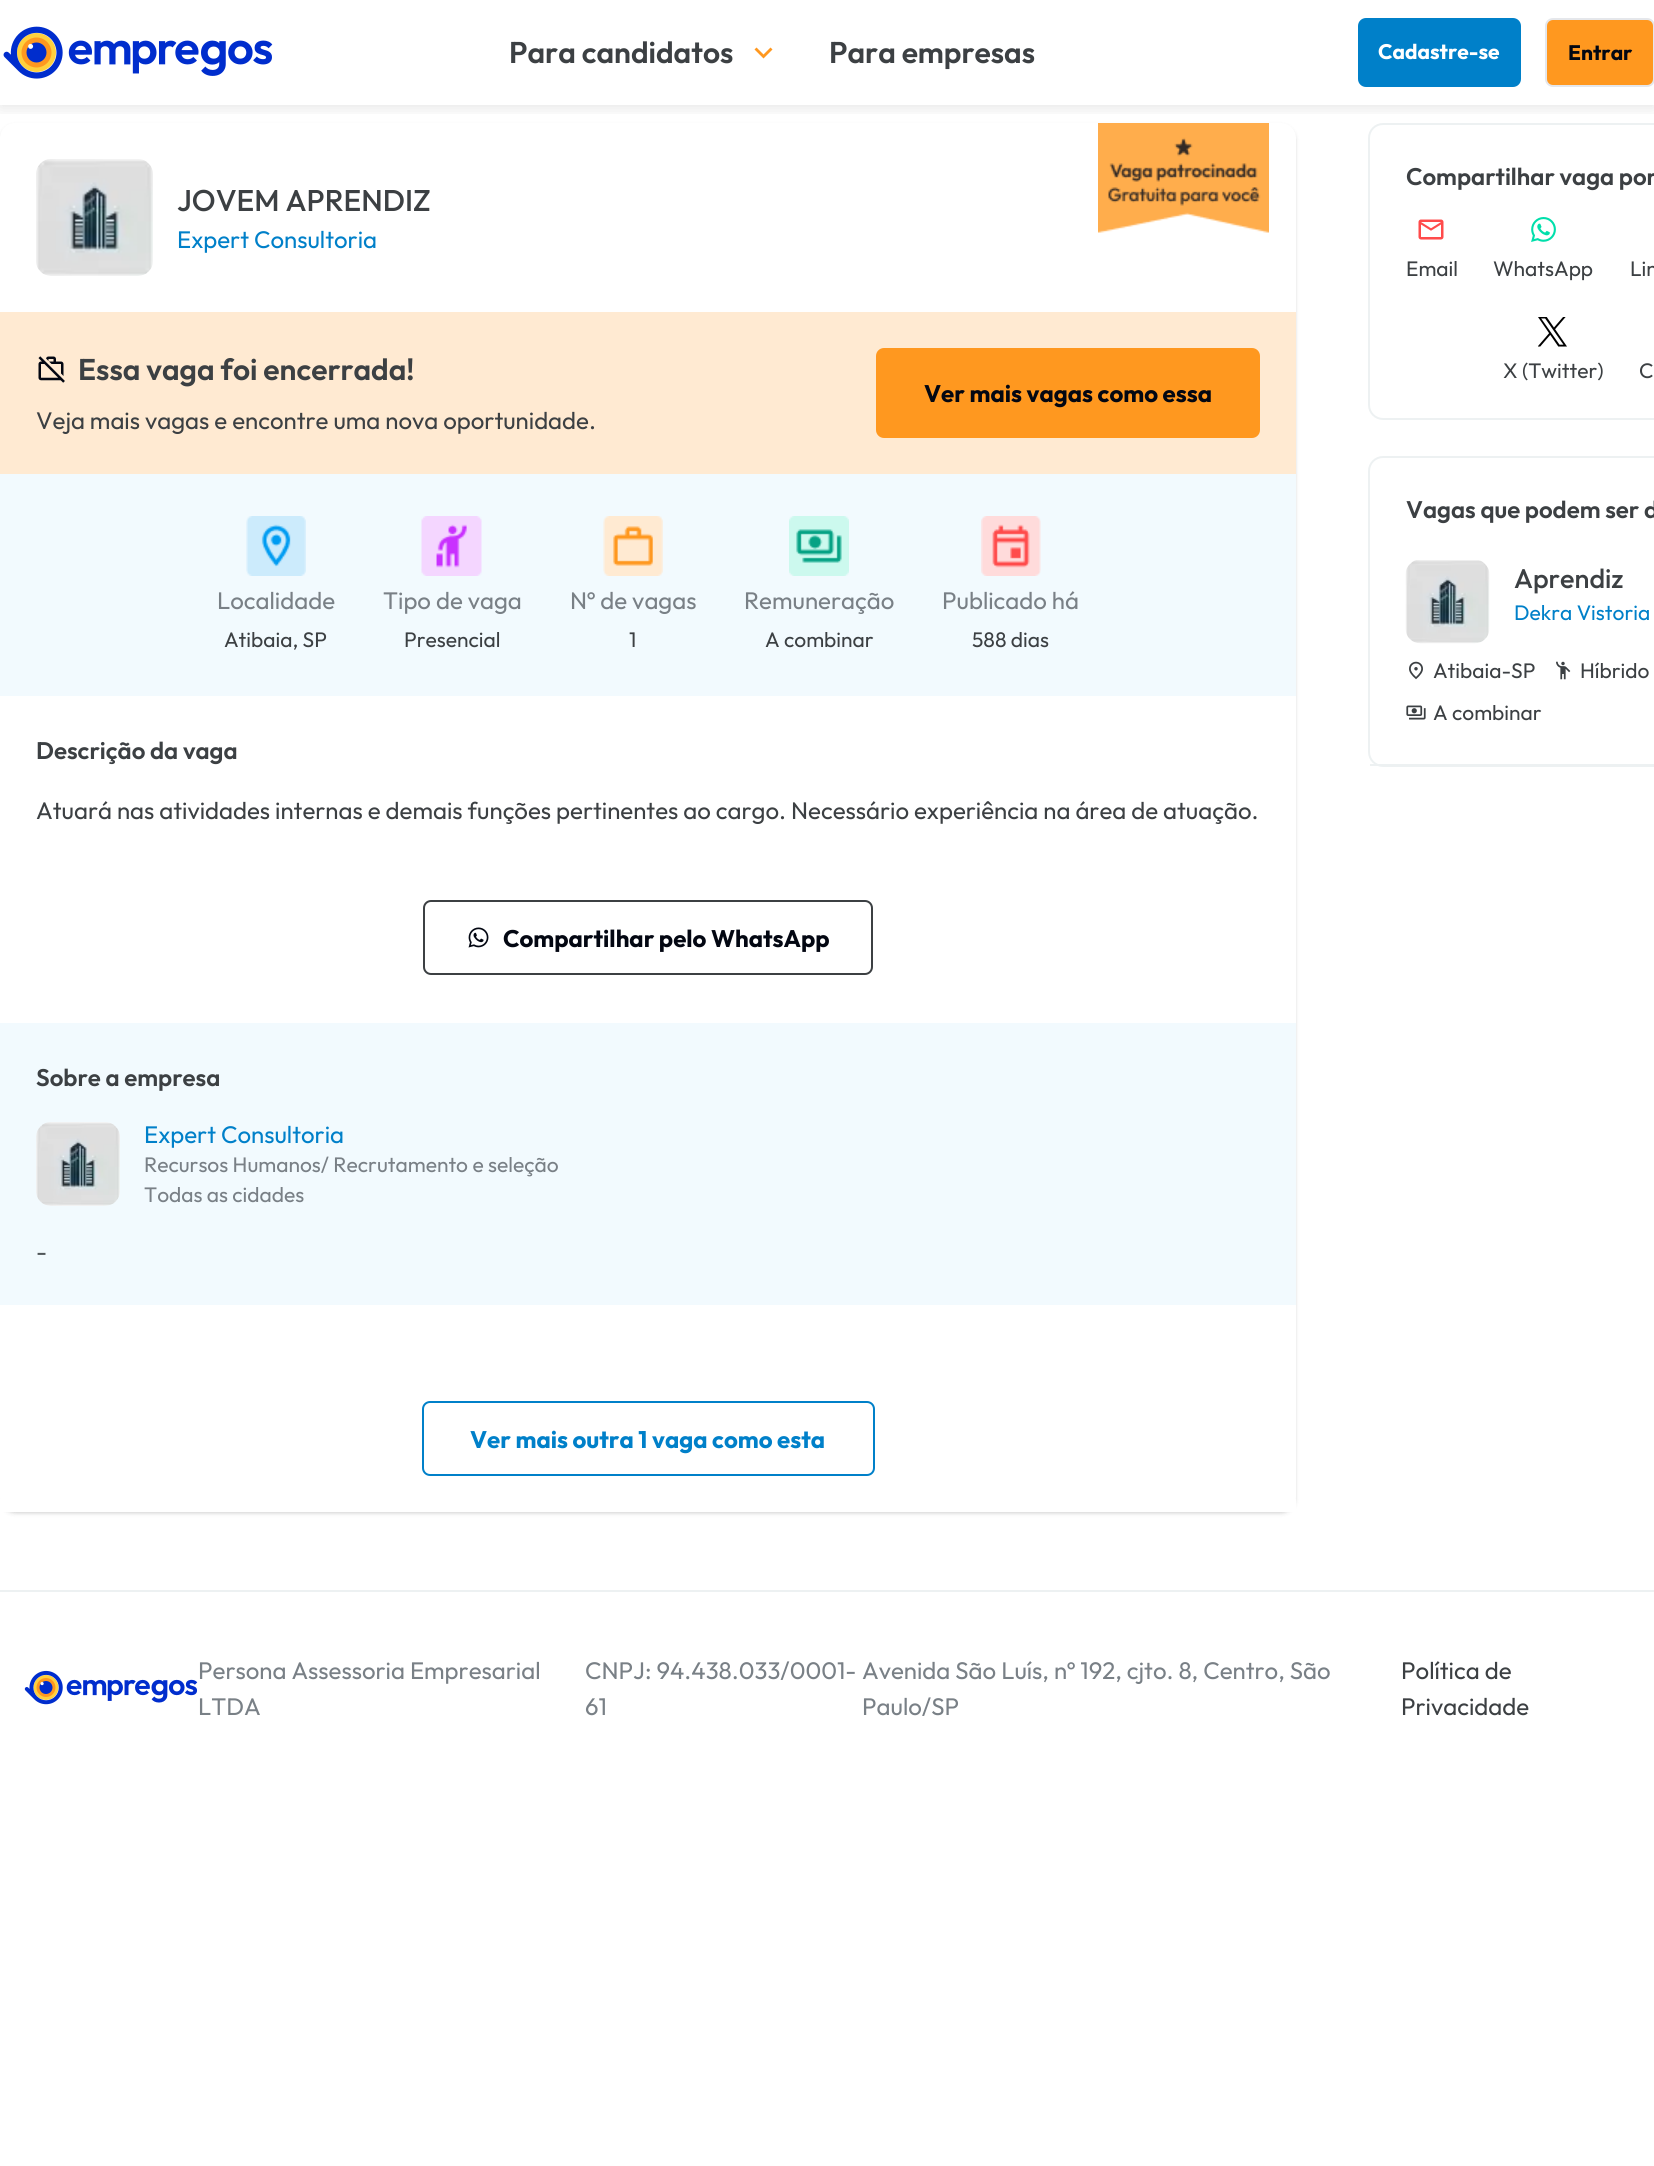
#include <cairo.h>
#include <math.h>
#include <stddef.h>

typedef struct { const char *family; double size; int italic, bold; unsigned color; } style_t;
static cairo_t *ctx;

static void ink(unsigned color) {
    cairo_set_source_rgb(ctx, (color >> 16) / 255.0, (color >> 8 & 255) / 255.0, (color & 255) / 255.0);
}

static void write(double x, double y, const char *s, const style_t *st) {
    cairo_select_font_face(ctx, st->family, st->italic ? CAIRO_FONT_SLANT_ITALIC : CAIRO_FONT_SLANT_NORMAL,
        st->bold ? CAIRO_FONT_WEIGHT_BOLD : CAIRO_FONT_WEIGHT_NORMAL);
    cairo_set_font_size(ctx, st->size);
    ink(st->color);
    cairo_move_to(ctx, x, y);
    cairo_show_text(ctx, s);
}

static void block(double x, double y, double w, double h, unsigned color) {
    ink(color);
    cairo_rectangle(ctx, x, y, w, h);
    cairo_fill(ctx);
}

static void round_path(double x, double y, double w, double h, double r) {
    cairo_new_sub_path(ctx);
    cairo_arc(ctx, x + w - r, y + h - r, r, 0, M_PI / 2);
    cairo_arc(ctx, x + r, y + h - r, r, M_PI / 2, M_PI);
    cairo_arc(ctx, x + r, y + r, r, M_PI, 1.5 * M_PI);
    cairo_arc(ctx, x + w - r, y + r, r, 1.5 * M_PI, 2 * M_PI);
    cairo_close_path(ctx);
}

static void blur_box(double x, double y, double w, double h, double r, double blur, double alpha) {
    cairo_push_group_with_content(ctx, CAIRO_CONTENT_ALPHA);
    cairo_set_operator(ctx, CAIRO_OPERATOR_SOURCE);
    for (int i = 15; i >= -15 && fmin(w, h) + blur * i / 3 > 0; i -= 2) {
        double e = blur * i / 6;
        cairo_set_source_rgba(ctx, 0, 0, 0, alpha * erfc((i - 1) / 8.5) / 2);
        round_path(x - e, y - e, w + 2 * e, h + 2 * e, fmax(0, fmin(r + e + blur * .6, fmin(w, h) / 2 + e)));
        cairo_fill(ctx);
    }
    cairo_pattern_t *soft = cairo_pop_group(ctx);
    cairo_mask(ctx, soft);
    cairo_pattern_destroy(soft);
}

static void paste(const char *path, double x, double y, double w, double h) {
    cairo_surface_t *image = cairo_image_surface_create_from_png(path);
    cairo_save(ctx);
    cairo_set_source_surface(ctx, image, x, y);
    cairo_rectangle(ctx, x, y, w, h);
    cairo_fill(ctx);
    cairo_restore(ctx);
    cairo_surface_destroy(image);
}

static const style_t s1 = {"Outfit SemiBold", 30, 0, 0, 0x3c4043};
static const style_t s2 = {"Outfit", 21, 0, 1, 0xffffff};
static const style_t s3 = {"Outfit", 21, 0, 1, 0x030712};
static const style_t s4 = {"Outfit Medium", 30, 0, 0, 0x3c4043};
static const style_t s5 = {"Outfit", 24, 0, 0, 0x0080c9};
static const style_t s6 = {"Outfit", 24, 0, 0, 0x3c4043};
static const style_t s7 = {"Outfit", 24, 0, 1, 0x030712};
static const style_t s8 = {"Outfit", 24, 0, 0, 0x798086};
static const style_t s9 = {"Outfit", 21, 0, 0, 0x3c4043};
static const style_t s10 = {"Outfit SemiBold", 24, 0, 0, 0x3c4043};
static const style_t s11 = {"Outfit", 21, 0, 0, 0x798086};
static const style_t s12 = {"Outfit", 24, 0, 0, 0x505659};
static const style_t s13 = {"Outfit", 24, 0, 1, 0x0080c9};
static const style_t s14 = {"Outfit Medium", 27, 0, 0, 0x3c4043};
static const style_t s15 = {"Outfit", 21, 0, 0, 0x0080c9};

int main(void) {
    cairo_surface_t *surface = cairo_image_surface_create(CAIRO_FORMAT_RGB24, 1654, 2166);
    ctx = cairo_create(surface);
    cairo_font_options_t *options = cairo_font_options_create();
    cairo_font_options_set_hint_metrics(options, CAIRO_HINT_METRICS_OFF);
    cairo_font_options_set_hint_style(options, CAIRO_HINT_STYLE_NONE);
    cairo_set_font_options(ctx, options);
    cairo_set_miter_limit(ctx, 4);
    ink(0xffffff);
    cairo_paint(ctx);
    ink(0x000000);
    blur_box(2, 126, 1293, 1386, 14, 1.5, 0.1);
    blur_box(0, 125, 1296, 1389, 15, 2, 0.1);
    ink(0xffffff);
    round_path(0, 123, 1296, 1389, 15);
    cairo_fill(ctx);
    paste("pic3.png", 1098, 123, 171, 110);
    round_path(1369, 124, 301, 295, 14);
    ink(0xedf1f2);
    cairo_stroke(ctx);
    cairo_save(ctx);
    cairo_rectangle(ctx, 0, 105, 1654, 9);
    cairo_clip(ctx);
    ink(0x000000);
    blur_box(0, 3, 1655, 105, 0, 7.5, 0.1);
    cairo_restore(ctx);
    paste("pic1.png", 3, 26, 270, 53);
    write(509, 63, "Para candidatos", &s1);
    ink(0xff981f);
    cairo_new_path(ctx);
    cairo_move_to(ctx, 756.5, 47.5);
    cairo_line_to(ctx, 763.5, 54.5);
    cairo_line_to(ctx, 770.5, 47.5);
    cairo_line_to(ctx, 772.5, 49.5);
    cairo_line_to(ctx, 763.5, 58.5);
    cairo_line_to(ctx, 754.5, 49.5);
    cairo_close_path(ctx);
    cairo_fill(ctx);
    write(829, 63, "Para empresas", &s1);
    ink(0x0080c9);
    round_path(1358, 18, 163, 69, 8);
    cairo_fill(ctx);
    write(1378, 59, "Cadastre-se", &s2);
    ink(0xff981f);
    round_path(1546, 19, 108, 67, 7);
    cairo_fill_preserve(ctx);
    ink(0xe5e7eb);
    cairo_stroke(ctx);
    write(1568, 60, "Entrar", &s3);
    paste("pic2.png", 36, 159, 117, 117);
    write(177, 211, "JOVEM APRENDIZ", &s4);
    write(177, 248, "Expert Consultoria", &s5);
    block(0, 312, 1296, 162, 0xffead2);
    paste("pic4.png", 38, 356, 27, 27);
    write(78, 380, "Essa vaga foi encerrada!", &s1);
    write(36, 429, "Veja mais vagas e encontre uma nova oportunidade.", &s6);
    ink(0xff981f);
    round_path(876, 348, 384, 90, 8);
    cairo_fill(ctx);
    write(924, 402, "Ver mais vagas como essa", &s7);
    block(0, 474, 1296, 222, 0xf2fafe);
    paste("pic5.png", 246, 516, 60, 60);
    write(217, 609, "Localidade", &s8);
    write(224, 647, "Atibaia, SP", &s9);
    paste("pic6.png", 421, 516, 61, 60);
    write(383, 609, "Tipo de vaga", &s8);
    write(404, 647, "Presencial", &s9);
    paste("pic7.png", 603, 516, 60, 60);
    write(570, 609, "Nº de vagas", &s8);
    write(629, 647, "1", &s9);
    paste("pic8.png", 789, 516, 60, 60);
    write(744, 609, "Remuneração", &s8);
    write(765, 647, "A combinar", &s9);
    paste("pic9.png", 981, 516, 60, 60);
    write(942, 609, "Publicado há", &s8);
    write(972, 647, "588 dias", &s9);
    write(36, 759, "Descrição da vaga", &s10);
    write(36, 819, "Atuará nas atividades internas e demais funções pertinentes ao cargo. Necessário experiência na área de atuação.", &s6);
    round_path(424, 901, 448, 73, 7);
    cairo_stroke(ctx);
    paste("pic10.png", 468, 927, 21, 21);
    write(503, 947, "Compartilhar pelo WhatsApp", &s7);
    block(0, 1023, 1296, 282, 0xf2fafe);
    write(36, 1086, "Sobre a empresa", &s10);
    paste("pic11.png", 36, 1122, 84, 84);
    write(144, 1143, "Expert Consultoria", &s5);
    write(144, 1172, "Recursos Humanos/ Recrutamento e seleção", &s11);
    write(144, 1202, "Todas as cidades", &s11);
    write(36, 1260, "-", &s12);
    block(0, 1499, 1296, 13, 0xffffff);
    round_path(423, 1402, 451, 73, 7);
    ink(0x0080c9);
    cairo_stroke(ctx);
    write(470, 1448, "Ver mais outra 1 vaga como esta", &s13);
    write(1406, 185, "Compartilhar vaga por", &s10);
    paste("pic12.png", 1418, 219, 26, 21);
    write(1406, 276, "Email", &s9);
    paste("pic13.png", 1531, 217, 25, 25);
    write(1493, 276, "WhatsApp", &s9);
    write(1630, 276, "Lin", &s9);
    paste("pic14.png", 1538, 317, 29, 30);
    write(1503, 378, "X (Twitter)", &s9);
    write(1639, 378, "C", &s9);
    round_path(1369, 457, 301, 309, 14);
    ink(0xedf1f2);
    cairo_stroke(ctx);
    write(1406, 518, "Vagas que podem ser d", &s10);
    block(1370, 764, 284, 2, 0xedf1f2);
    paste("pic15.png", 1405, 560, 85, 84);
    write(1514, 588, "Aprendiz", &s14);
    write(1514, 620, "Dekra Vistoria", &s15);
    paste("pic16.png", 1409, 661, 14, 19);
    write(1433, 678, "Atibaia-SP", &s9);
    paste("pic17.png", 1556, 661, 15, 19);
    write(1580, 678, "Híbrido", &s9);
    paste("pic18.png", 1406, 705, 20, 15);
    write(1433, 720, "A combinar", &s9);
    block(0, 1590, 1654, 2, 0xedf1f2);
    paste("pic19.png", 24, 1670, 174, 35);
    write(198, 1679, "Persona Assessoria Empresarial", &s8);
    write(198, 1715, "LTDA", &s8);
    write(585, 1679, "CNPJ: 94.438.033/0001-", &s8);
    write(585, 1715, "61", &s8);
    write(862, 1679, "Avenida São Luís, nº 192, cjto. 8, Centro, São", &s8);
    write(862, 1715, "Paulo/SP", &s8);
    write(1401, 1679, "Política de", &s6);
    write(1401, 1715, "Privacidade", &s6);
    cairo_surface_write_to_png(surface, "screenshot.png");
    cairo_font_options_destroy(options);
    cairo_destroy(ctx);
    cairo_surface_destroy(surface);
    return 0;
}
